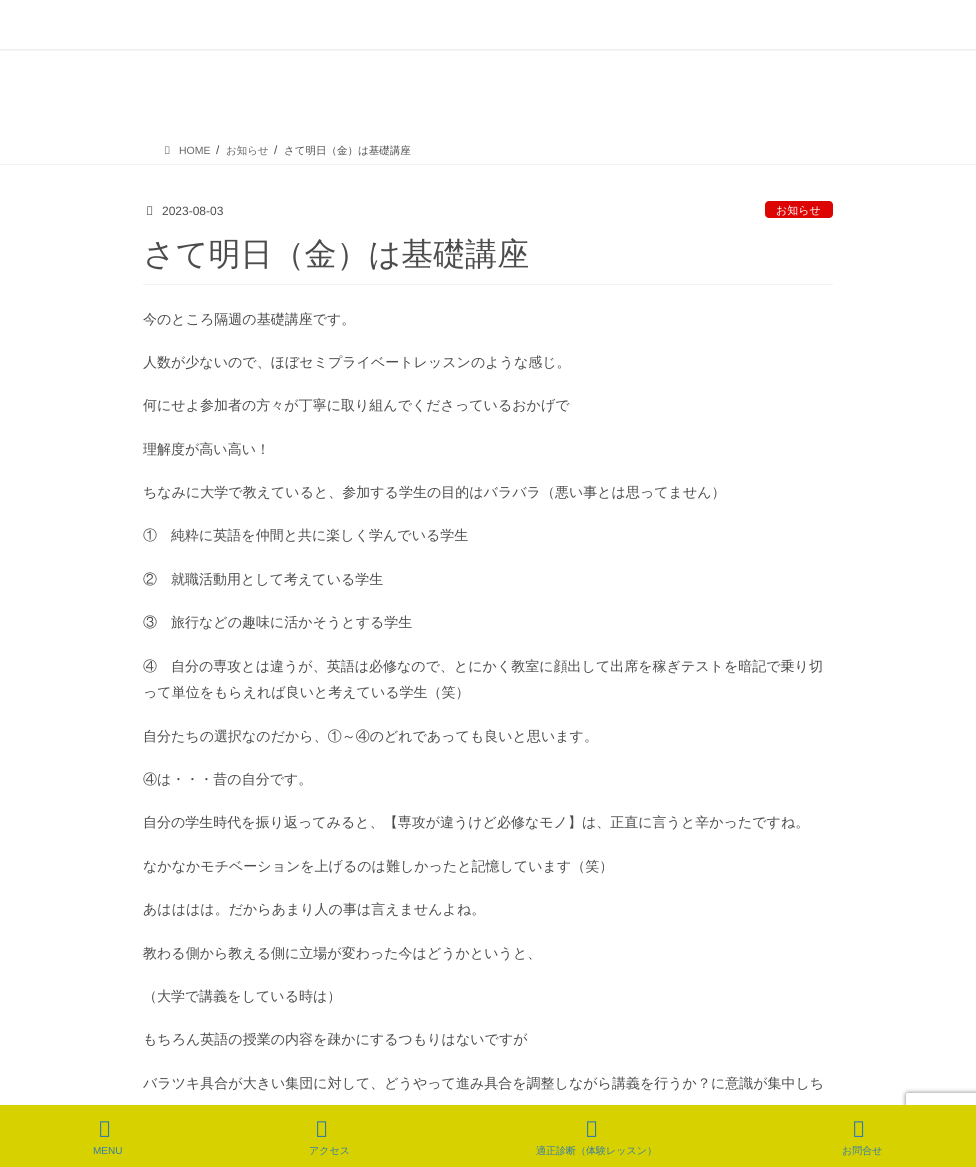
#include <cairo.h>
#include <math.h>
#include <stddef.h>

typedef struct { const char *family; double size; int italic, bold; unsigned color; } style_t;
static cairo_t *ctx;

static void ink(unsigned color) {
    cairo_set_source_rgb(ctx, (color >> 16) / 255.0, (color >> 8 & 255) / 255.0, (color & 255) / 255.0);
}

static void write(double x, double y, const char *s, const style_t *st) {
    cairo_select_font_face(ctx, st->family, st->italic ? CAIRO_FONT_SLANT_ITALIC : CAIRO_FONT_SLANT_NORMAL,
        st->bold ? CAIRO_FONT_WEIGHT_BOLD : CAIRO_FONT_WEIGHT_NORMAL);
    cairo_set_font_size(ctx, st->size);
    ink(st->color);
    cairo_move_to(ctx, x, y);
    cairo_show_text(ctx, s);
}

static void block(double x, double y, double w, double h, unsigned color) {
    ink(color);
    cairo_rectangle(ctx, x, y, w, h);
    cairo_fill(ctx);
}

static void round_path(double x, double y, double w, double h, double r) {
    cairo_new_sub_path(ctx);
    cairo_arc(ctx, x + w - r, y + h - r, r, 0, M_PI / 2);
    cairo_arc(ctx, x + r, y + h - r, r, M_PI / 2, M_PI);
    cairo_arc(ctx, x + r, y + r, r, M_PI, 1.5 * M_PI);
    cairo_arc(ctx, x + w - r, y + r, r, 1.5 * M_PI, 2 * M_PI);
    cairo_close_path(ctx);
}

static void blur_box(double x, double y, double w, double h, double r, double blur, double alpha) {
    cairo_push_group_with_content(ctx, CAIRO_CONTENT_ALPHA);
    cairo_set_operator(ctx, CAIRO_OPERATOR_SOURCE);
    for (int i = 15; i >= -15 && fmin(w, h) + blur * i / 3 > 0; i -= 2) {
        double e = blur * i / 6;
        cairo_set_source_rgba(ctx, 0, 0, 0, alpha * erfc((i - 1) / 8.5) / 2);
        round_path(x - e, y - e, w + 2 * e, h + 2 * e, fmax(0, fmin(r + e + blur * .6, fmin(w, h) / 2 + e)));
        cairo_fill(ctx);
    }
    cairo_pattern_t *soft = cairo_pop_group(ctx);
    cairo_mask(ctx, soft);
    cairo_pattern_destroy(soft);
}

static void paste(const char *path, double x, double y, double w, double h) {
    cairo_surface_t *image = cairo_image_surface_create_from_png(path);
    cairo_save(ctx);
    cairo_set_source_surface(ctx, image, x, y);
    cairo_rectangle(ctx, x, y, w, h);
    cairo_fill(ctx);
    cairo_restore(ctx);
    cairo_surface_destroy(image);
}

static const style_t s1 = {"Liberation Sans", 10.5, 0, 0, 0x666666};
static const style_t s2 = {"Liberation Sans", 12, 0, 0, 0x4c4c4c};
static const style_t s3 = {"WenQuanYi Zen Hei Medium", 10.5, 0, 0, 0x666666};
static const style_t s4 = {"WenQuanYi Zen Hei Medium", 10.5, 0, 0, 0x4c4c4c};
static const style_t s5 = {"WenQuanYi Zen Hei Medium", 11, 0, 0, 0xffffff};
static const style_t s6 = {"WenQuanYi Zen Hei Medium", 32, 0, 0, 0x4c4c4c};
static const style_t s7 = {"WenQuanYi Zen Hei Medium", 14, 0, 0, 0x4c4c4c};
static const style_t s8 = {"Liberation Sans", 10, 0, 0, 0x317cab};
static const style_t s9 = {"WenQuanYi Zen Hei Medium", 10, 0, 0, 0x317cab};

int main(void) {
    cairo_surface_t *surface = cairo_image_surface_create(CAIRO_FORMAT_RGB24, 976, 1167);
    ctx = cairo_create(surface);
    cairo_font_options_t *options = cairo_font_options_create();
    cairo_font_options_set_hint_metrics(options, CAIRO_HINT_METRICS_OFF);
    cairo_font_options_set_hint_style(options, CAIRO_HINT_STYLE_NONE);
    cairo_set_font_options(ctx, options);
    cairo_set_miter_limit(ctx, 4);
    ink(0xffffff);
    cairo_paint(ctx);
    cairo_save(ctx);
    cairo_rectangle(ctx, 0, 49, 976, 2);
    cairo_clip(ctx);
    ink(0x000000);
    blur_box(0, 1, 976, 49, 0, 1.5, 0.1);
    cairo_restore(ctx);
    block(0, 164, 976, 1, 0xf2f2f2);
    paste("pic1.png", 165, 146, 5, 8);
    write(179, 154, "HOME", &s1);
    write(216, 154, "/", &s2);
    write(226, 154, "お知らせ", &s3);
    write(274, 154, "/", &s2);
    write(284, 154, "さて明日（金）は基礎講座", &s4);
    block(143, 284, 690, 1, 0xf2f2f2);
    paste("pic2.png", 147, 206, 6, 9);
    write(162, 215, "2023-08-03", &s2);
    ink(0xdd0404);
    round_path(765, 201, 68, 17, 4);
    cairo_fill(ctx);
    write(776, 214, "お知らせ", &s5);
    write(143, 265, "さて明日（金）は基礎講座", &s6);
    write(143, 324, "今のところ隔週の基礎講座です。", &s7);
    write(143, 367, "人数が少ないので、ほぼセミプライベートレッスンのような感じ。", &s7);
    write(143, 410, "何にせよ参加者の方々が丁寧に取り組んでくださっているおかげで", &s7);
    write(143, 454, "理解度が高い高い！", &s7);
    write(143, 497, "ちなみに大学で教えていると、参加する学生の目的はバラバラ（悪い事とは思ってません）", &s7);
    write(143, 540, "①　純粋に英語を仲間と共に楽しく学んでいる学生", &s7);
    write(143, 584, "②　就職活動用として考えている学生", &s7);
    write(143, 627, "③　旅行などの趣味に活かそうとする学生", &s7);
    write(143, 671, "④　自分の専攻とは違うが、英語は必修なので、とにかく教室に顔出して出席を稼ぎテストを暗記で乗り切", &s7);
    write(143, 697, "って単位をもらえれば良いと考えている学生（笑）", &s7);
    write(143, 741, "自分たちの選択なのだから、①～④のどれであっても良いと思います。", &s7);
    write(143, 784, "④は・・・昔の自分です。", &s7);
    write(143, 827, "自分の学生時代を振り返ってみると、【専攻が違うけど必修なモノ】は、正直に言うと辛かったですね。", &s7);
    write(143, 871, "なかなかモチベーションを上げるのは難しかったと記憶しています（笑）", &s7);
    write(143, 914, "あはははは。だからあまり人の事は言えませんよね。", &s7);
    write(143, 958, "教わる側から教える側に立場が変わった今はどうかというと、", &s7);
    write(143, 1001, "（大学で講義をしている時は）", &s7);
    write(143, 1044, "もちろん英語の授業の内容を疎かにするつもりはないですが", &s7);
    write(143, 1088, "バラツキ具合が大きい集団に対して、どうやって進み具合を調整しながら講義を行うか？に意識が集中しち", &s7);
    cairo_save(ctx);
    cairo_set_fill_rule(ctx, CAIRO_FILL_RULE_EVEN_ODD);
    cairo_new_path(ctx);
    cairo_move_to(ctx, 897, 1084);
    cairo_line_to(ctx, 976, 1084);
    cairo_line_to(ctx, 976, 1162);
    cairo_line_to(ctx, 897, 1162);
    cairo_close_path(ctx);
    cairo_move_to(ctx, 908, 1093);
    cairo_line_to(ctx, 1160, 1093);
    cairo_curve_to(ctx, 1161, 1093, 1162, 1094, 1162, 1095);
    cairo_line_to(ctx, 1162, 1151);
    cairo_curve_to(ctx, 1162, 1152, 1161, 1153, 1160, 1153);
    cairo_line_to(ctx, 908, 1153);
    cairo_curve_to(ctx, 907, 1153, 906, 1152, 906, 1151);
    cairo_line_to(ctx, 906, 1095);
    cairo_curve_to(ctx, 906, 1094, 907, 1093, 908, 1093);
    cairo_close_path(ctx);
    cairo_clip(ctx);
    ink(0x808080);
    blur_box(906, 1093, 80, 60, 2, 2.5, 1);
    cairo_restore(ctx);
    block(0, 1105, 976, 62, 0xd8d100);
    paste("pic3.png", 100, 1121, 10, 16);
    write(93, 1154, "MENU", &s8);
    paste("pic3.png", 317, 1121, 10, 16);
    write(309, 1154, "アクセス", &s9);
    paste("pic3.png", 587, 1121, 10, 16);
    write(536, 1154, "適正診断（体験レッスン）", &s9);
    paste("pic3.png", 854, 1121, 10, 16);
    write(842, 1154, "お問合せ", &s9);
    cairo_surface_write_to_png(surface, "screenshot.png");
    cairo_font_options_destroy(options);
    cairo_destroy(ctx);
    cairo_surface_destroy(surface);
    return 0;
}
